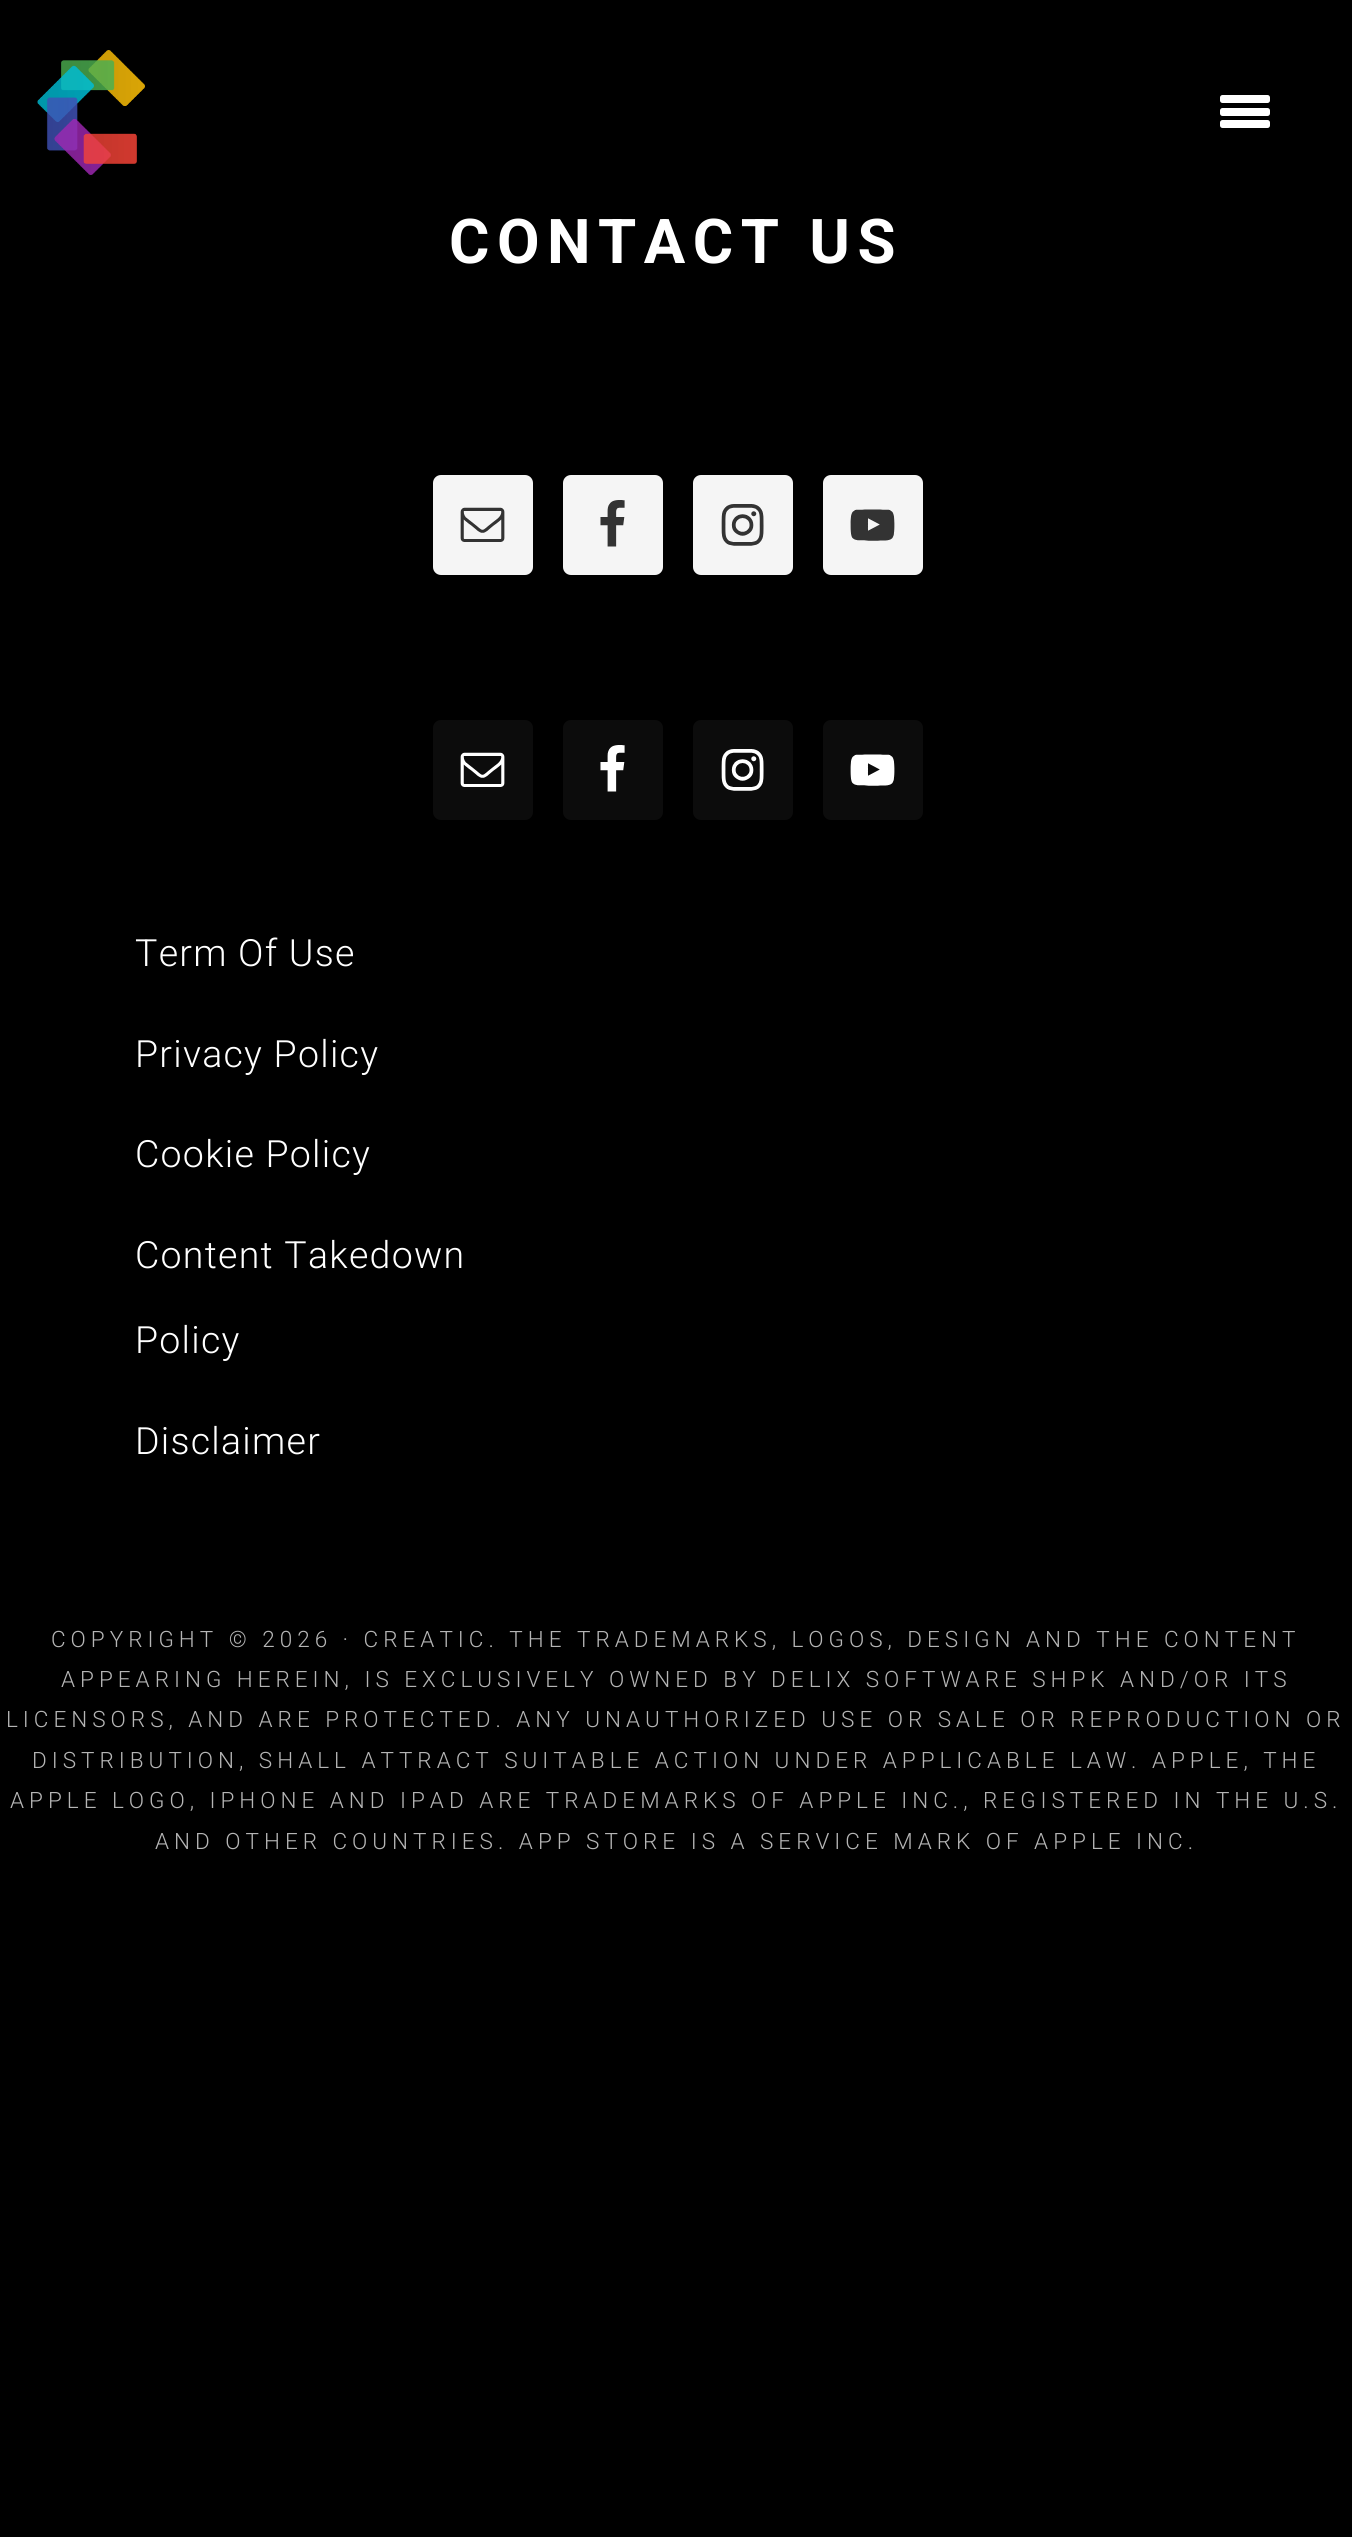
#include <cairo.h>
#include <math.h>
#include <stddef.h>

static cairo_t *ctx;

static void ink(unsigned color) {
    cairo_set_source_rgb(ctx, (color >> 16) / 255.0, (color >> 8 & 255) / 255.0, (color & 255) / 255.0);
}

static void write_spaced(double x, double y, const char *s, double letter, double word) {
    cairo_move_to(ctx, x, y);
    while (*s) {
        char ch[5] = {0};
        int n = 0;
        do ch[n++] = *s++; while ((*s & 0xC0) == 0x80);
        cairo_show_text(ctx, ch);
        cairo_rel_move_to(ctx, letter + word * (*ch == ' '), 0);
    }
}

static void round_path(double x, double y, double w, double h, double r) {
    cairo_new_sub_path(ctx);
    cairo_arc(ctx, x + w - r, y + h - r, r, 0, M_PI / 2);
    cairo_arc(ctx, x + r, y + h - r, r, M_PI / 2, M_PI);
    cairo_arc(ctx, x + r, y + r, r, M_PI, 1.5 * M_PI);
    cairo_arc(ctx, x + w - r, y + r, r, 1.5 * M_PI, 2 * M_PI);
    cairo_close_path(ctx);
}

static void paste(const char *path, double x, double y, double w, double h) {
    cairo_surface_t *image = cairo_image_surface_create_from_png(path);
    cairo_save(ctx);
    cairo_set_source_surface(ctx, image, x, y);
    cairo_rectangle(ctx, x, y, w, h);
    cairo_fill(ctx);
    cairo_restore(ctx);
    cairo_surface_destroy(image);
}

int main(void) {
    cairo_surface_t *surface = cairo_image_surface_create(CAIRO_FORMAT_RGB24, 1352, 2537);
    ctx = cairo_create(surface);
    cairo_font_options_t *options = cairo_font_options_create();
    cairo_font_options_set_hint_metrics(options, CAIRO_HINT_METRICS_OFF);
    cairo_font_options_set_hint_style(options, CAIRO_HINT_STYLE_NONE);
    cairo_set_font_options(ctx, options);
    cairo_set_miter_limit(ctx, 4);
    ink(0x000000);
    cairo_paint(ctx);
    paste("pic1.png", 37, 50, 108, 125);
    ink(0xffffff);
    round_path(1220, 108, 50, 8, 2.5);
    cairo_fill(ctx);
    round_path(1220, 95, 50, 8, 2.5);
    cairo_fill(ctx);
    round_path(1220, 120, 50, 8, 2.5);
    cairo_fill(ctx);
    cairo_select_font_face(ctx, "Roboto", CAIRO_FONT_SLANT_NORMAL, CAIRO_FONT_WEIGHT_BOLD);
    cairo_set_font_size(ctx, 61.75);
    write_spaced(449, 263, "CONTACT US", 7.5, 0);
    ink(0xf5f5f5);
    round_path(433, 475, 100, 100, 8);
    cairo_fill(ctx);
    paste("pic2.png", 460, 507, 45, 35);
    round_path(563, 475, 100, 100, 8);
    cairo_fill(ctx);
    paste("pic3.png", 600, 500, 25, 47);
    round_path(693, 475, 100, 100, 8);
    cairo_fill(ctx);
    paste("pic4.png", 721, 504, 43, 42);
    round_path(823, 475, 100, 100, 8);
    cairo_fill(ctx);
    paste("pic5.png", 850, 509, 45, 32);
    ink(0x0c0c0c);
    round_path(433, 720, 100, 100, 8);
    cairo_fill(ctx);
    paste("pic6.png", 460, 752, 45, 35);
    round_path(563, 720, 100, 100, 8);
    cairo_fill(ctx);
    paste("pic7.png", 600, 745, 25, 47);
    round_path(693, 720, 100, 100, 8);
    cairo_fill(ctx);
    paste("pic8.png", 721, 749, 43, 42);
    round_path(823, 720, 100, 100, 8);
    cairo_fill(ctx);
    paste("pic9.png", 850, 754, 45, 32);
    cairo_select_font_face(ctx, "Roboto Light", CAIRO_FONT_SLANT_NORMAL, CAIRO_FONT_WEIGHT_NORMAL);
    cairo_set_font_size(ctx, 37.5);
    ink(0xffffff);
    write_spaced(135, 966, "Term Of Use", 1.25, 0);
    write_spaced(135, 1067, "Privacy Policy", 1.25, 0);
    write_spaced(135, 1167, "Cookie Policy", 1.25, 0);
    write_spaced(135, 1268, "Content Takedown", 1.25, 0);
    write_spaced(135, 1353, "Policy", 1.25, 0);
    write_spaced(135, 1454, "Disclaimer", 1.25, 0);
    cairo_set_font_size(ctx, 22.5);
    ink(0xb5b5b5);
    write_spaced(51, 1647, "COPYRIGHT © 2026 · CREATIC. THE TRADEMARKS, LOGOS, DESIGN AND THE CONTENT", 5, 0);
    write_spaced(61, 1687, "APPEARING HEREIN, IS EXCLUSIVELY OWNED BY DELIX SOFTWARE SHPK AND/OR ITS", 5, 0);
    write_spaced(6, 1727, "LICENSORS, AND ARE PROTECTED. ANY UNAUTHORIZED USE OR SALE OR REPRODUCTION OR", 5, 0);
    write_spaced(32, 1768, "DISTRIBUTION, SHALL ATTRACT SUITABLE ACTION UNDER APPLICABLE LAW. APPLE, THE", 5, 0);
    write_spaced(10, 1808, "APPLE LOGO, IPHONE AND IPAD ARE TRADEMARKS OF APPLE INC., REGISTERED IN THE U.S.", 5, 0);
    write_spaced(155, 1849, "AND OTHER COUNTRIES. APP STORE IS A SERVICE MARK OF APPLE INC.", 5, 0);
    cairo_surface_write_to_png(surface, "screenshot.png");
    cairo_font_options_destroy(options);
    cairo_destroy(ctx);
    cairo_surface_destroy(surface);
    return 0;
}
